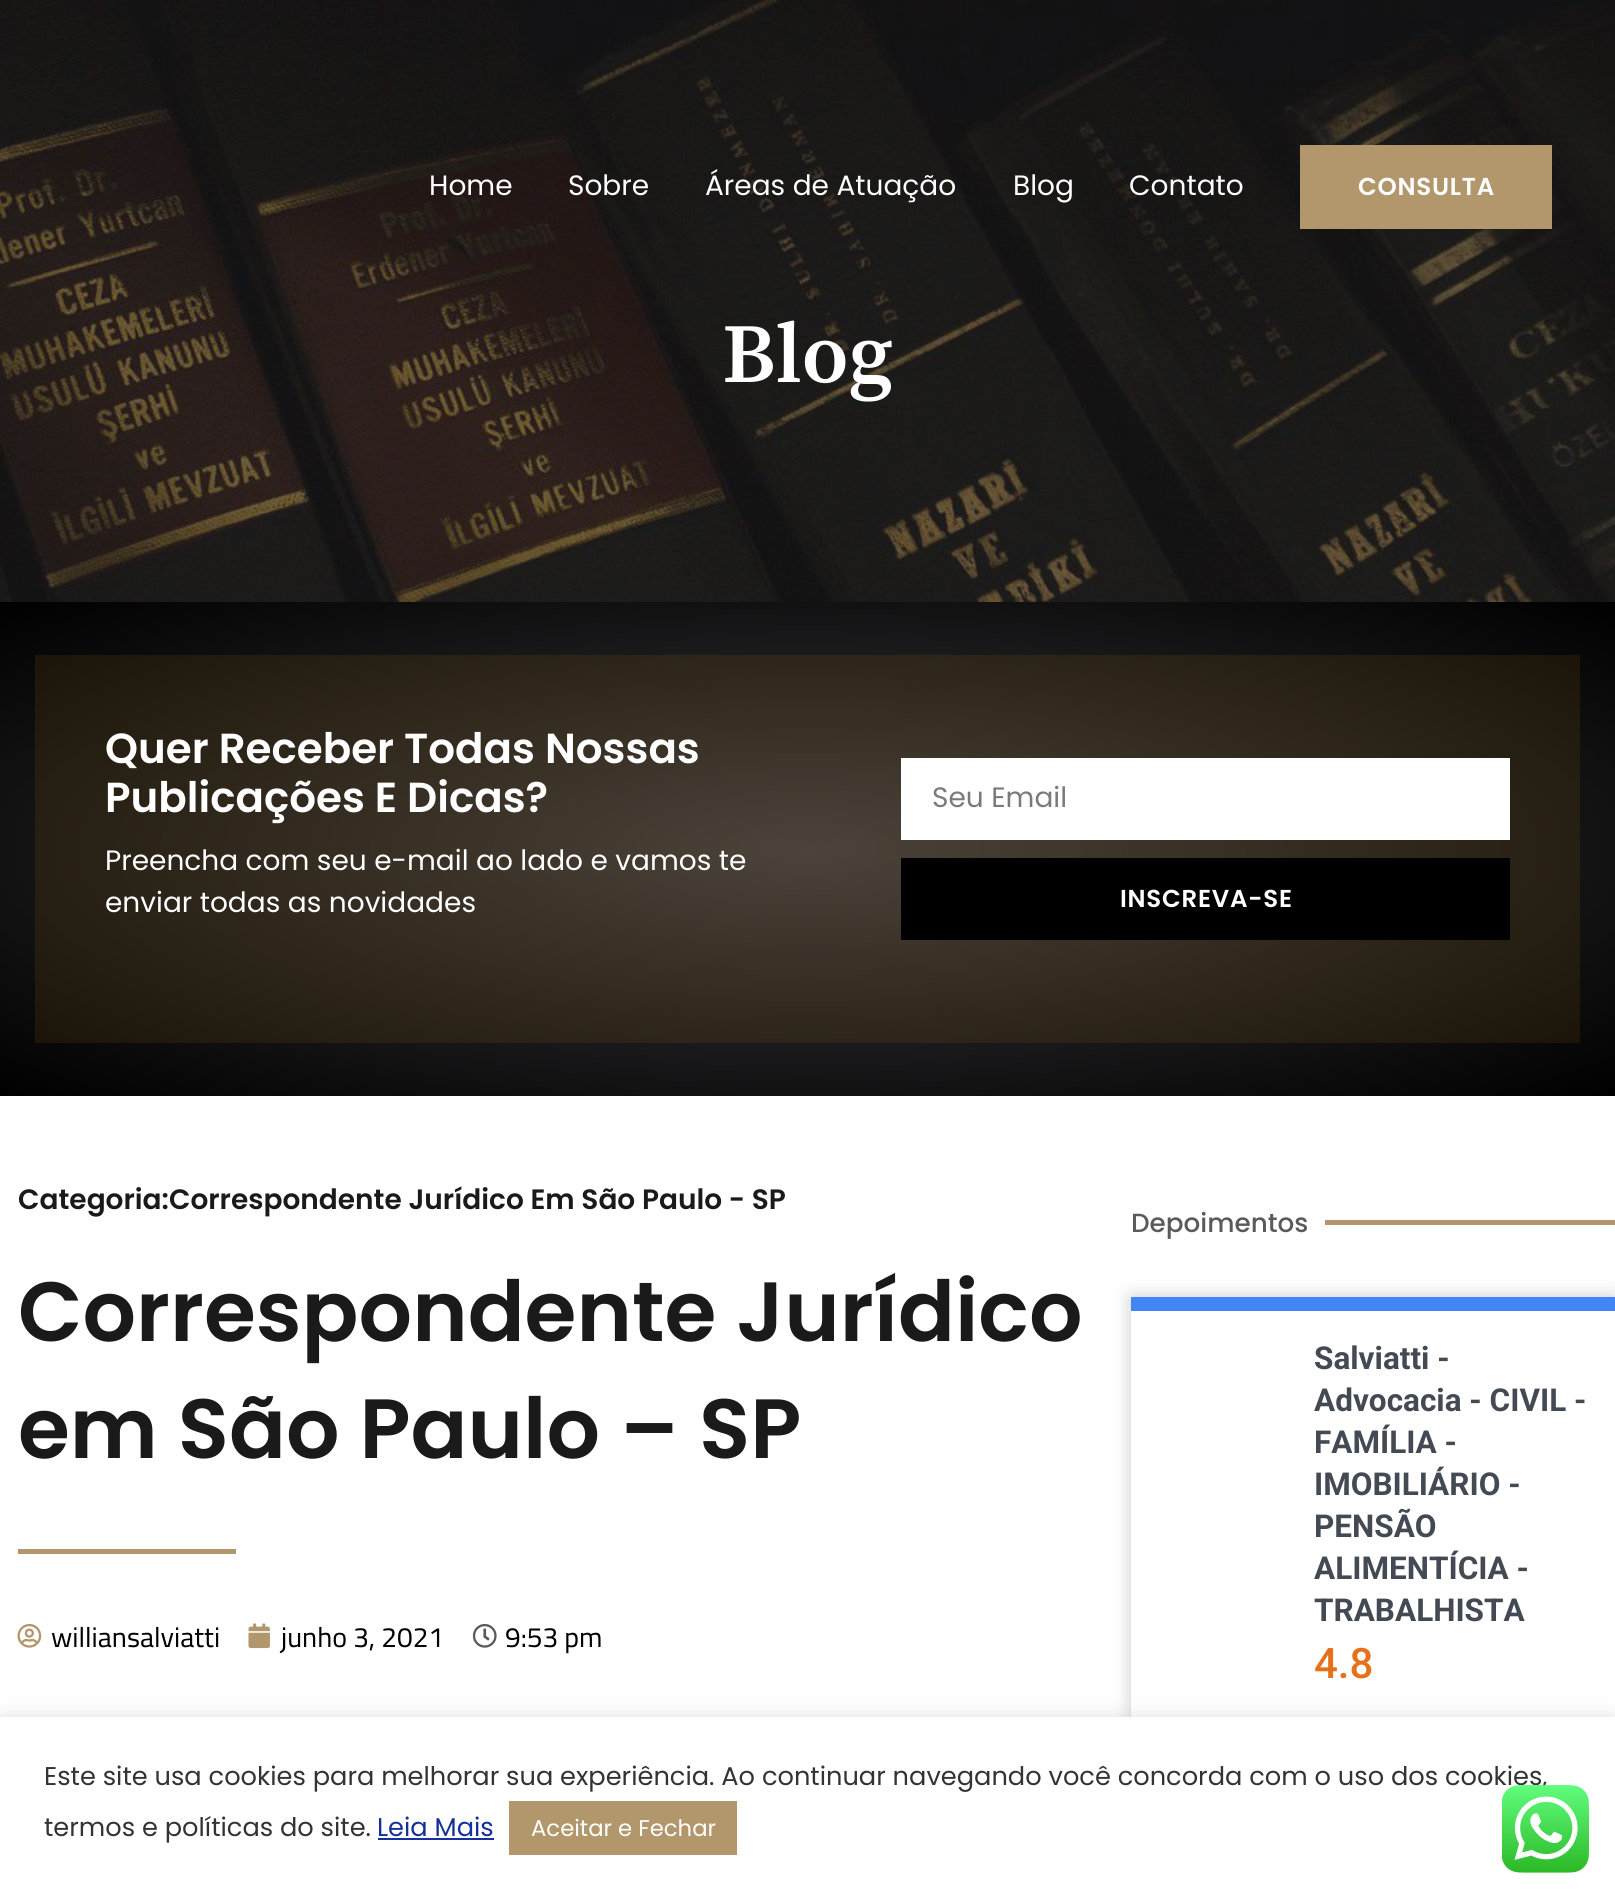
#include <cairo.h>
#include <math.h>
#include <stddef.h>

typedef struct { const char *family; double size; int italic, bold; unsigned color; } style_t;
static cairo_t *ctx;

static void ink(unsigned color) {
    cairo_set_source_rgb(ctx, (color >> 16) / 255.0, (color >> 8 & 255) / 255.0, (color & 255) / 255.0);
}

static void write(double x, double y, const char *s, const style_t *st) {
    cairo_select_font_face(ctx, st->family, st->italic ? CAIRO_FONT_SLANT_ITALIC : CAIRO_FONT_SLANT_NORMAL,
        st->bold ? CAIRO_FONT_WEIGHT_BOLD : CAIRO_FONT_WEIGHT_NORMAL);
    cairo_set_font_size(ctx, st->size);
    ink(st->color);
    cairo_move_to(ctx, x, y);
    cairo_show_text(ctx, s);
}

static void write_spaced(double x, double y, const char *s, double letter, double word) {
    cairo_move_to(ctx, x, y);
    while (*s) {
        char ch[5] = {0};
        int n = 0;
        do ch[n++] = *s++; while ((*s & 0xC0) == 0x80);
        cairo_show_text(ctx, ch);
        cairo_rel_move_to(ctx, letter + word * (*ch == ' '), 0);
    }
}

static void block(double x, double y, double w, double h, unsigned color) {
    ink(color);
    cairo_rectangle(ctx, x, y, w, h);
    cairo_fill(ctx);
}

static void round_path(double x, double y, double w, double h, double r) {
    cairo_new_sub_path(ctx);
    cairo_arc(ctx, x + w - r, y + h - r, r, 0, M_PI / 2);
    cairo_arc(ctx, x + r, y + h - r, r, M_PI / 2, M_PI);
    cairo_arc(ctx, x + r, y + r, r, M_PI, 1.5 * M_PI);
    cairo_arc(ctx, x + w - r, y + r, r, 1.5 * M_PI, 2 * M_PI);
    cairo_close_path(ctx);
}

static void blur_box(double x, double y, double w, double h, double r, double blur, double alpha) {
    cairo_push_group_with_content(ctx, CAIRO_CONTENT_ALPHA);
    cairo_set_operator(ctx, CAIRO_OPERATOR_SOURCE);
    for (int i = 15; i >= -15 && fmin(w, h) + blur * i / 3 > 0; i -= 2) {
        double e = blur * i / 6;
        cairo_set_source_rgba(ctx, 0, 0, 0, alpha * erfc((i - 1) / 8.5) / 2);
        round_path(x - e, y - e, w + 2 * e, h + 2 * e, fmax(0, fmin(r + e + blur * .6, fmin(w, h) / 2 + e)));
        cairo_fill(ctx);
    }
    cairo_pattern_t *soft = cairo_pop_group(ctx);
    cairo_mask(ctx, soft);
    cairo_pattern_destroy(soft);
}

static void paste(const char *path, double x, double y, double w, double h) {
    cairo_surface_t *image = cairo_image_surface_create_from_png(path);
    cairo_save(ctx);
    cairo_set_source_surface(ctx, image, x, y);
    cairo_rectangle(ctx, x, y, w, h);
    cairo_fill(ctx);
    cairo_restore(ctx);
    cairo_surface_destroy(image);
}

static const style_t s1 = {"Poppins", 28, 0, 0, 0xffffff};
static const style_t s2 = {"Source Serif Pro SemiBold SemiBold", 84, 0, 0, 0xffffff};
static const style_t s3 = {"Poppins SemiBold", 42, 0, 0, 0xffffff};
static const style_t s4 = {"Poppins", 28, 0, 0, 0x797a7c};
static const style_t s5 = {"Poppins SemiBold", 28, 0, 0, 0x1a1a1a};
static const style_t s6 = {"Poppins SemiBold", 84, 0, 0, 0x1a1a1a};
static const style_t s7 = {"Cairo", 28, 0, 0, 0x000000};
static const style_t s8 = {"Poppins Medium", 26.25, 0, 0, 0x5a5a5a};
static const style_t s9 = {"Roboto", 31.5, 0, 1, 0x434a54};
static const style_t s10 = {"Roboto Medium", 42, 0, 0, 0xe7711b};
static const style_t s11 = {"Poppins", 25.67, 0, 0, 0x333333};
static const style_t s12 = {"Poppins", 25.67, 0, 0, 0x163099};
static const style_t s13 = {"Poppins", 22.75, 0, 0, 0xffffff};

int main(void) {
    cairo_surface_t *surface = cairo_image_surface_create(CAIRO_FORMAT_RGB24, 1615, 1898);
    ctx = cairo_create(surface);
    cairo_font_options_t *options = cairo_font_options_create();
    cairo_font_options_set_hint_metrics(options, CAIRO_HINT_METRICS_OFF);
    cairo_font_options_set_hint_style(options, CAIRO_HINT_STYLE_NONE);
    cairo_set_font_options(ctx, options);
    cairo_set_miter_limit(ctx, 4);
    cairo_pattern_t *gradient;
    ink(0xffffff);
    cairo_paint(ctx);
    paste("pic1.png", 0, 0, 1615, 602);
    write(429, 195, "Home", &s1);
    write(568, 195, "Sobre", &s1);
    write(705, 195, "Áreas de Atuação", &s1);
    write(1013, 195, "Blog", &s1);
    write(1129, 195, "Contato", &s1);
    block(1300, 145, 252, 84, 0xb1976b);
    cairo_select_font_face(ctx, "Poppins SemiBold", CAIRO_FONT_SLANT_NORMAL, CAIRO_FONT_WEIGHT_NORMAL);
    cairo_set_font_size(ctx, 24.5);
    ink(0xffffff);
    write_spaced(1358, 195, "CONSULTA", 0.75, 0);
    write(722, 382, "Blog", &s2);
    gradient = cairo_pattern_create_radial(0, 0, 0, 0, 0, 1);
    cairo_pattern_set_matrix(gradient, &(cairo_matrix_t){1.0 / 1142, 0, 0, 1.0 / 349, -1.0 * 808 / 1142, -1.0 * 849 / 349});
    cairo_pattern_add_color_stop_rgba(gradient, 0, 0.235, 0.231, 0.247, 1);
    cairo_pattern_add_color_stop_rgba(gradient, 1, 0, 0, 0, 1);
    cairo_set_source(ctx, gradient);
    cairo_pattern_destroy(gradient);
    cairo_rectangle(ctx, 0, 602, 1615, 494);
    cairo_fill(ctx);
    gradient = cairo_pattern_create_radial(0, 0, 0, 0, 0, 1);
    cairo_pattern_set_matrix(gradient, &(cairo_matrix_t){1.0 / 1142, 0, 0, 1.0 / 349, -1.0 * 808 / 1142, -1.0 * 849 / 349});
    cairo_pattern_add_color_stop_rgba(gradient, 0, 0.298, 0.263, 0.227, 1);
    cairo_pattern_add_color_stop_rgba(gradient, 1, 0.078, 0.051, 0, 1);
    cairo_set_source(ctx, gradient);
    cairo_pattern_destroy(gradient);
    cairo_rectangle(ctx, 831, 655, 749, 388);
    cairo_fill(ctx);
    cairo_rectangle(ctx, 35, 655, 796, 388);
    cairo_fill(ctx);
    write(105, 763, "Quer Receber Todas Nossas", &s3);
    write(105, 812, "Publicações E Dicas?", &s3);
    write(105, 870, "Preencha com seu e-mail ao lado e vamos te", &s1);
    write(105, 912, "enviar todas as novidades", &s1);
    block(901, 758, 609, 82, 0xffffff);
    write(932, 807, "Seu Email", &s4);
    block(901, 858, 609, 82, 0x000000);
    cairo_select_font_face(ctx, "Poppins SemiBold", CAIRO_FONT_SLANT_NORMAL, CAIRO_FONT_WEIGHT_NORMAL);
    cairo_set_font_size(ctx, 24.5);
    ink(0xffffff);
    write_spaced(1120, 907, "INSCREVA-SE", 0.75, 0);
    write(18, 1209, "Categoria:Correspondente Jurídico Em São Paulo - SP", &s5);
    write(18, 1341, "Correspondente Jurídico", &s6);
    write(18, 1458, "em São Paulo – SP", &s6);
    block(18, 1549, 218, 5, 0xb1976b);
    paste("pic2.png", 17, 1623, 25, 25);
    write(51, 1647, "williansalviatti", &s7);
    paste("pic3.png", 248, 1623, 22, 26);
    write(281, 1647, "junho 3, 2021", &s7);
    paste("pic4.png", 472, 1623, 25, 25);
    write(505, 1647, "9:53 pm", &s7);
    write(1131, 1232, "Depoimentos", &s8);
    block(1325, 1220, 290, 5, 0xb1976b);
    cairo_save(ctx);
    cairo_set_fill_rule(ctx, CAIRO_FILL_RULE_EVEN_ODD);
    cairo_new_path(ctx);
    cairo_move_to(ctx, 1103, 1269);
    cairo_line_to(ctx, 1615, 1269);
    cairo_line_to(ctx, 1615, 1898);
    cairo_line_to(ctx, 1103, 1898);
    cairo_close_path(ctx);
    cairo_move_to(ctx, 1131, 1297);
    cairo_line_to(ctx, 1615, 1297);
    cairo_line_to(ctx, 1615, 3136);
    cairo_line_to(ctx, 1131, 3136);
    cairo_close_path(ctx);
    cairo_clip(ctx);
    ink(0x000000);
    blur_box(1131, 1297, 484, 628, 0, 9, 0.21);
    cairo_restore(ctx);
    block(1131, 1297, 484, 14, 0x4285f4);
    write(1314, 1369, "Salviatti -", &s9);
    write(1314, 1411, "Advocacia - CIVIL -", &s9);
    write(1314, 1453, "FAMÍLIA -", &s9);
    write(1314, 1495, "IMOBILIÁRIO -", &s9);
    write(1314, 1537, "PENSÃO", &s9);
    write(1314, 1579, "ALIMENTÍCIA -", &s9);
    write(1314, 1621, "TRABALHISTA", &s9);
    write(1314, 1678, "4.8", &s10);
    ink(0xacabab);
    blur_box(0, 1715, 1615, 182, 0, 9, 0.3);
    block(0, 1717, 1615, 181, 0xffffff);
    write(44, 1785, "Este site usa cookies para melhorar sua experiência. Ao continuar navegando você concorda com o uso dos cookies,", &s11);
    write(44, 1836, "termos e políticas do site.", &s11);
    write(377, 1836, "Leia Mais", &s12);
    block(378, 1838, 116, 2, 0x163099);
    block(509, 1801, 228, 54, 0xb1976b);
    write(531, 1836, "Aceitar e Fechar", &s13);
    paste("pic5.png", 1502, 1785, 87, 88);
    cairo_surface_write_to_png(surface, "screenshot.png");
    cairo_font_options_destroy(options);
    cairo_destroy(ctx);
    cairo_surface_destroy(surface);
    return 0;
}
